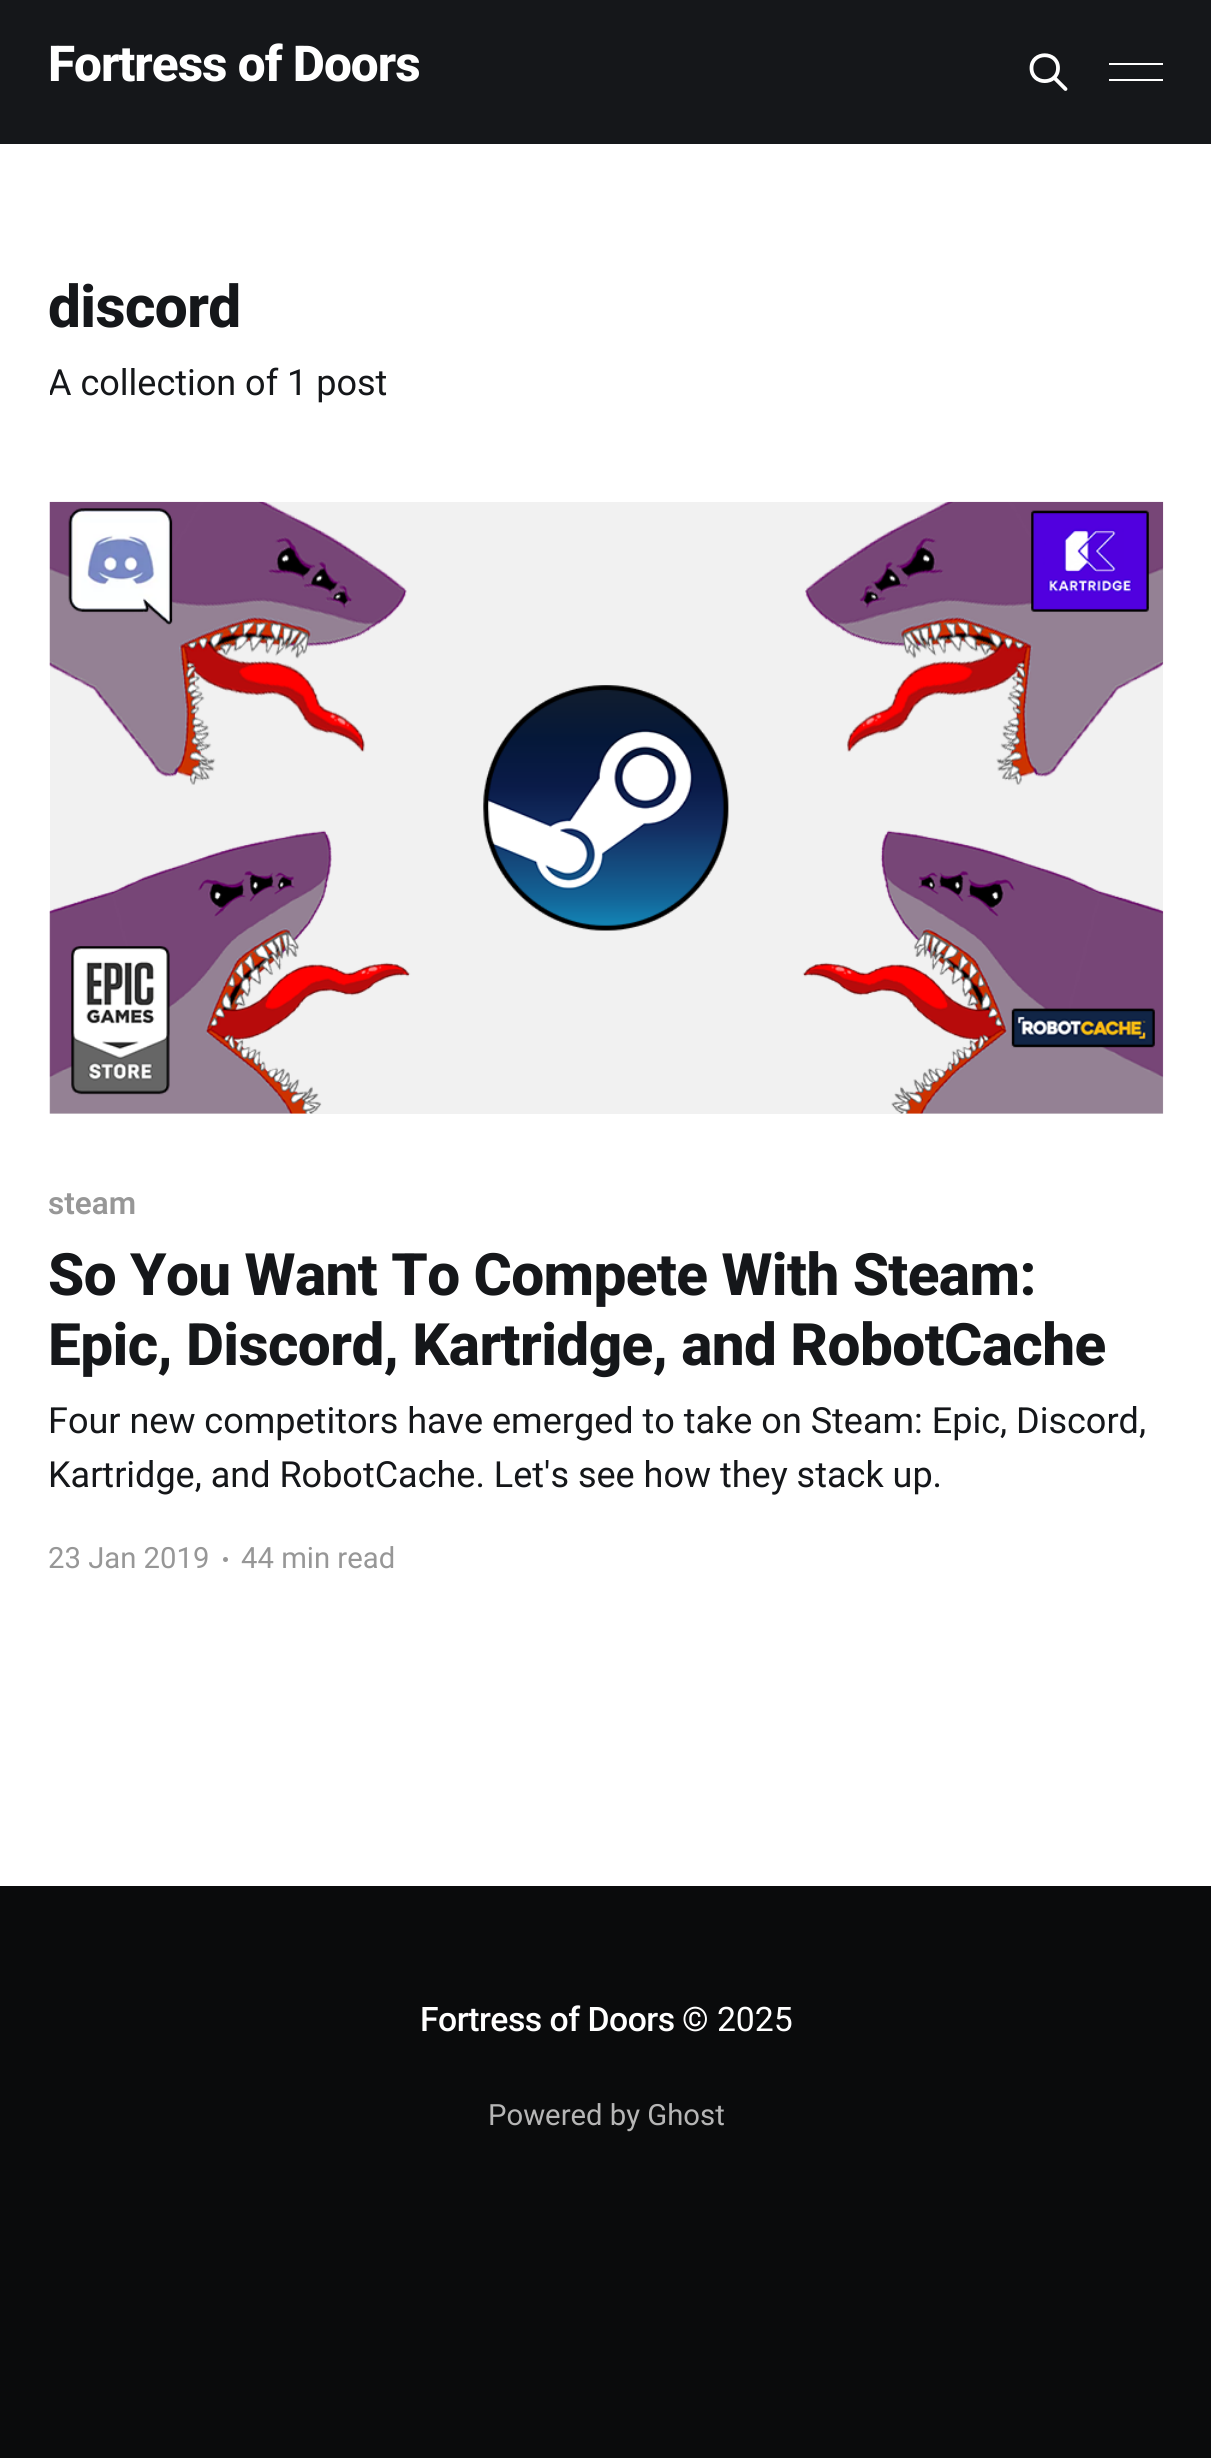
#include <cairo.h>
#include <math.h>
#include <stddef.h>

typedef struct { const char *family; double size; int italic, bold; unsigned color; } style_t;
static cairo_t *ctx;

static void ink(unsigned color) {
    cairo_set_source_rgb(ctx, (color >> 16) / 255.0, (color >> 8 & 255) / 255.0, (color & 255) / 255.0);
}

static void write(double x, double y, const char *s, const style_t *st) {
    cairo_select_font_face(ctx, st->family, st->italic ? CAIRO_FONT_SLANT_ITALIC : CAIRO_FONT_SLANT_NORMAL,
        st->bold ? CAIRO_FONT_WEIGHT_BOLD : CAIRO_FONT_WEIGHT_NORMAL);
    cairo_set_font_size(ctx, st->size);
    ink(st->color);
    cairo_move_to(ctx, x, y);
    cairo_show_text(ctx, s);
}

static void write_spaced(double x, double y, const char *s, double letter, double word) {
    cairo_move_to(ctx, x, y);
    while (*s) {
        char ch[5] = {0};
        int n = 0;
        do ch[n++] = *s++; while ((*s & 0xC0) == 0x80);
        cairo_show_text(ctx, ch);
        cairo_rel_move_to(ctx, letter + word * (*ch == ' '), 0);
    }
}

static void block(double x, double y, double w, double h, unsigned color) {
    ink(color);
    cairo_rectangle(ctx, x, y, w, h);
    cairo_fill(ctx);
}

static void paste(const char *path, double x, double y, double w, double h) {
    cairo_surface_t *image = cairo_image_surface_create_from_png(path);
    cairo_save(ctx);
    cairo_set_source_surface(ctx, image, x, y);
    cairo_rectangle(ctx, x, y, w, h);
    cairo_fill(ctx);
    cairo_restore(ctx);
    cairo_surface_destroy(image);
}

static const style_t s1 = {"Roboto", 36, 0, 0, 0x15171a};
static const style_t s2 = {"Roboto SemiBold", 31.5, 0, 0, 0x979797};
static const style_t s3 = {"Roboto", 29.25, 0, 0, 0x979797};
static const style_t s4 = {"Roboto", 33.75, 0, 0, 0xffffff};
static const style_t s5 = {"Roboto", 29.25, 0, 0, 0xb6b6b6};

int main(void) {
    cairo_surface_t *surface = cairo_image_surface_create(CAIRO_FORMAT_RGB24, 1211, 2458);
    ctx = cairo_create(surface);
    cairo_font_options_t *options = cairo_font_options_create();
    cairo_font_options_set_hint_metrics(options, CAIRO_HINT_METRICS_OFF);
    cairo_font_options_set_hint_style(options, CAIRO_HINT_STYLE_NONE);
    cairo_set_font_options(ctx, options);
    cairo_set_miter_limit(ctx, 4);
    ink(0xffffff);
    cairo_paint(ctx);
    block(0, 0, 1211, 144, 0x15171a);
    cairo_select_font_face(ctx, "Roboto ExtraBold", CAIRO_FONT_SLANT_NORMAL, CAIRO_FONT_WEIGHT_NORMAL);
    cairo_set_font_size(ctx, 49.5);
    ink(0xffffff);
    write_spaced(48, 81, "Fortress of Doors", -1, 0);
    cairo_new_path(ctx);
    cairo_move_to(ctx, 1065.5, 89);
    cairo_line_to(ctx, 1054, 77.5);
    cairo_move_to(ctx, 1058, 68);
    cairo_curve_to(ctx, 1058, 85.5, 1031.5, 85.5, 1031.5, 68);
    cairo_curve_to(ctx, 1031.5, 51, 1058, 51, 1058, 68);
    cairo_close_path(ctx);
    cairo_set_line_width(ctx, 3.8);
    cairo_set_line_cap(ctx, CAIRO_LINE_CAP_ROUND);
    cairo_set_line_join(ctx, CAIRO_LINE_JOIN_ROUND);
    cairo_stroke(ctx);
    block(1109, 63, 54, 2, 0xffffff);
    block(1109, 79, 54, 2, 0xffffff);
    cairo_set_font_size(ctx, 58.5);
    ink(0x15171a);
    write_spaced(48, 327, "discord", -0.6, 0);
    cairo_save(ctx);
    cairo_rectangle(ctx, 50, 358, 1113, 54);
    cairo_clip(ctx);
    write(48, 395, "A collection of 1 post", &s1);
    cairo_restore(ctx);
    block(50, 502, 1113, 612, 0xf1f1f1);
    paste("pic1.png", 49, 501, 1115, 613);
    write(48, 1214, "steam", &s2);
    cairo_select_font_face(ctx, "Roboto ExtraBold", CAIRO_FONT_SLANT_NORMAL, CAIRO_FONT_WEIGHT_NORMAL);
    cairo_set_font_size(ctx, 58.5);
    ink(0x15171a);
    write_spaced(48, 1295, "So You Want To Compete With Steam:", -0.6, 0);
    write_spaced(48, 1365, "Epic, Discord, Kartridge, and RobotCache", -0.6, 0);
    write(48, 1433, "Four new competitors have emerged to take on Steam: Epic, Discord,", &s1);
    write(48, 1487, "Kartridge, and RobotCache. Let's see how they stack up.", &s1);
    write(48, 1568, "23 Jan 2019", &s3);
    cairo_new_path(ctx);
    cairo_arc(ctx, 225.5, 1559.5, 2.5, 0, 2 * M_PI);
    cairo_fill(ctx);
    write(241, 1568, "44 min read", &s3);
    block(0, 1886, 1211, 572, 0x0a0b0c);
    cairo_select_font_face(ctx, "Roboto Medium", CAIRO_FONT_SLANT_NORMAL, CAIRO_FONT_WEIGHT_NORMAL);
    cairo_set_font_size(ctx, 33.75);
    ink(0xffffff);
    write_spaced(420, 2031, "Fortress of Doors", -0.5, 0);
    write(682, 2031, "© 2025", &s4);
    write(488, 2125, "Powered by Ghost", &s5);
    cairo_surface_write_to_png(surface, "screenshot.png");
    cairo_font_options_destroy(options);
    cairo_destroy(ctx);
    cairo_surface_destroy(surface);
    return 0;
}
